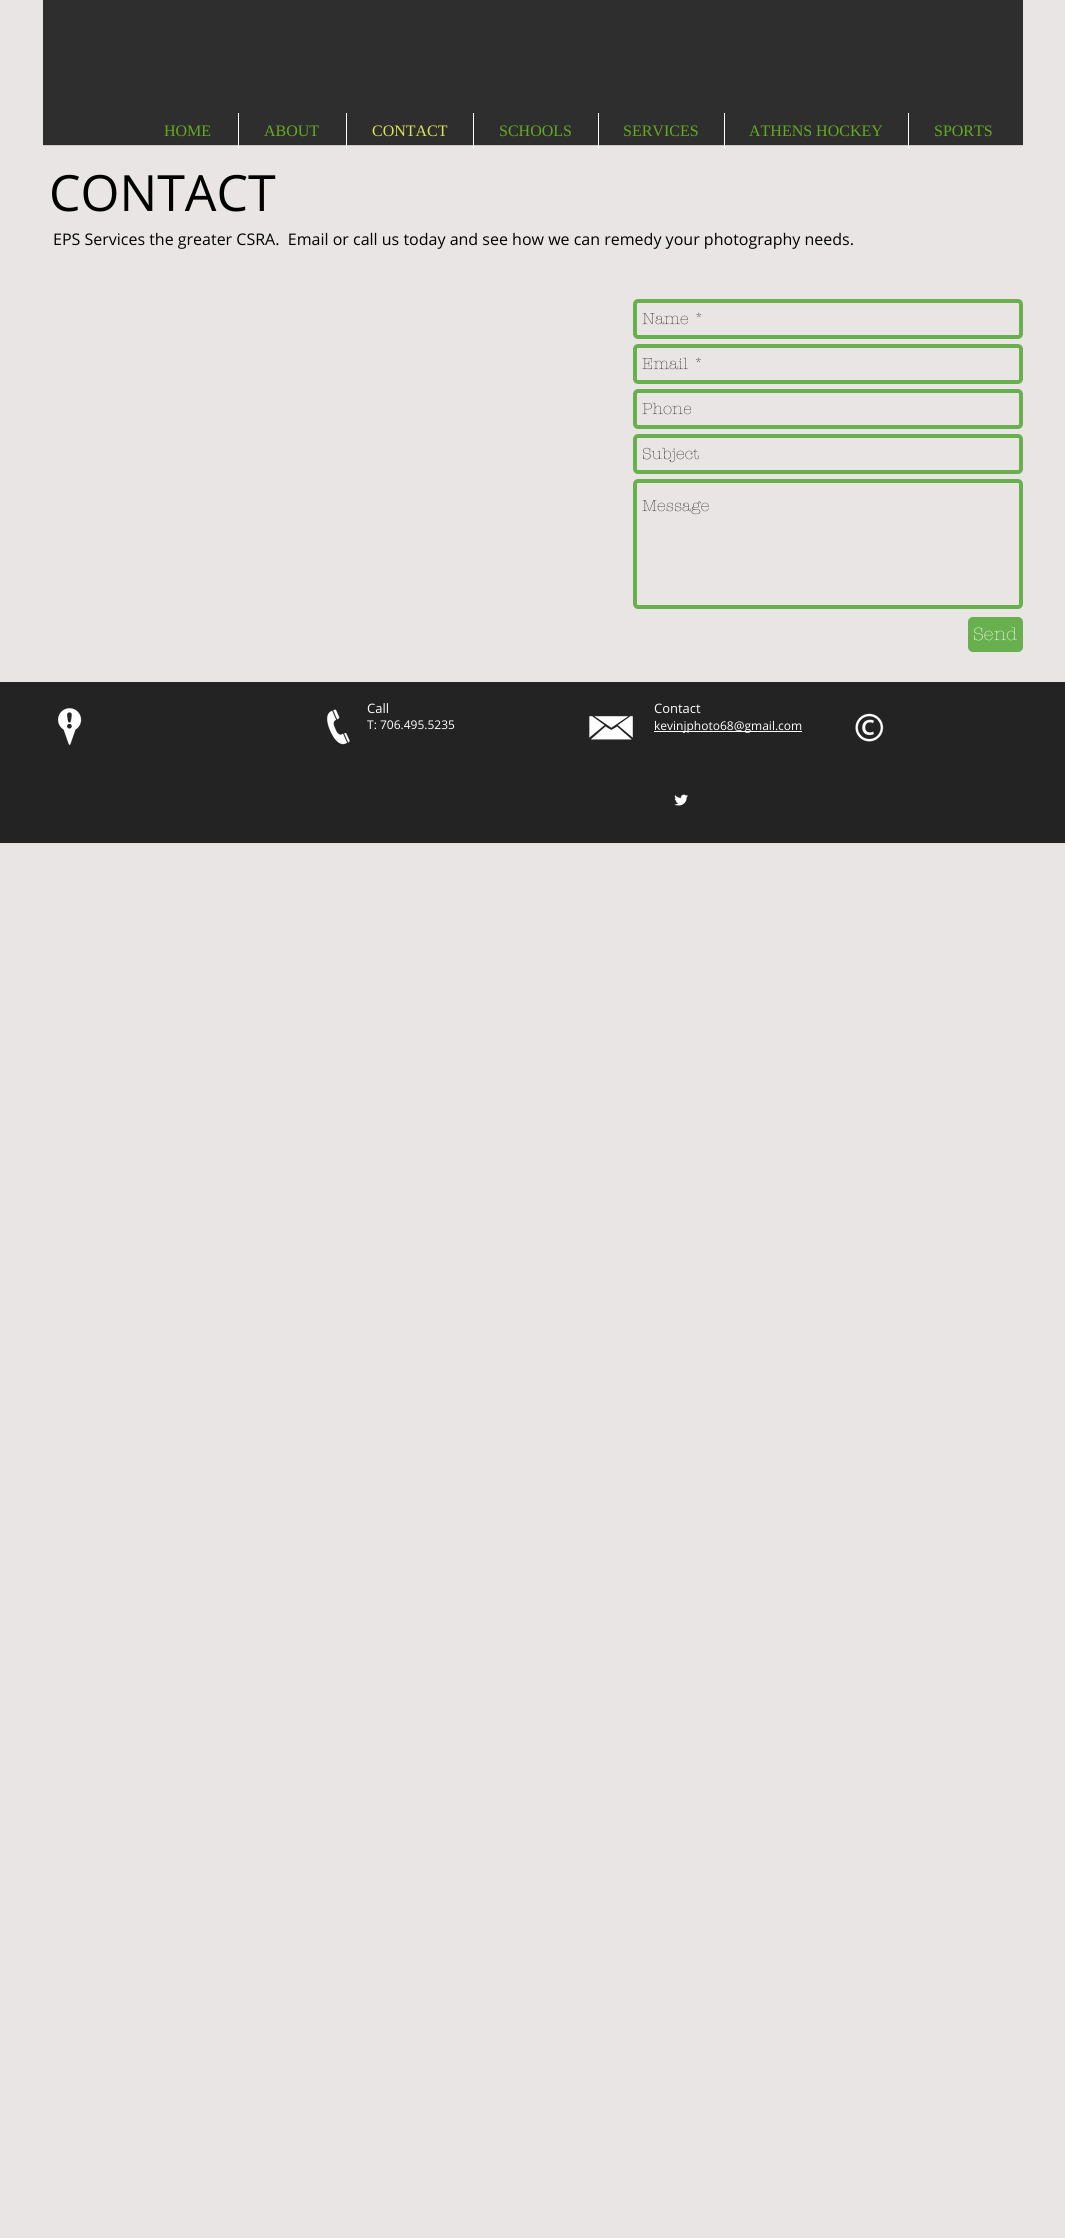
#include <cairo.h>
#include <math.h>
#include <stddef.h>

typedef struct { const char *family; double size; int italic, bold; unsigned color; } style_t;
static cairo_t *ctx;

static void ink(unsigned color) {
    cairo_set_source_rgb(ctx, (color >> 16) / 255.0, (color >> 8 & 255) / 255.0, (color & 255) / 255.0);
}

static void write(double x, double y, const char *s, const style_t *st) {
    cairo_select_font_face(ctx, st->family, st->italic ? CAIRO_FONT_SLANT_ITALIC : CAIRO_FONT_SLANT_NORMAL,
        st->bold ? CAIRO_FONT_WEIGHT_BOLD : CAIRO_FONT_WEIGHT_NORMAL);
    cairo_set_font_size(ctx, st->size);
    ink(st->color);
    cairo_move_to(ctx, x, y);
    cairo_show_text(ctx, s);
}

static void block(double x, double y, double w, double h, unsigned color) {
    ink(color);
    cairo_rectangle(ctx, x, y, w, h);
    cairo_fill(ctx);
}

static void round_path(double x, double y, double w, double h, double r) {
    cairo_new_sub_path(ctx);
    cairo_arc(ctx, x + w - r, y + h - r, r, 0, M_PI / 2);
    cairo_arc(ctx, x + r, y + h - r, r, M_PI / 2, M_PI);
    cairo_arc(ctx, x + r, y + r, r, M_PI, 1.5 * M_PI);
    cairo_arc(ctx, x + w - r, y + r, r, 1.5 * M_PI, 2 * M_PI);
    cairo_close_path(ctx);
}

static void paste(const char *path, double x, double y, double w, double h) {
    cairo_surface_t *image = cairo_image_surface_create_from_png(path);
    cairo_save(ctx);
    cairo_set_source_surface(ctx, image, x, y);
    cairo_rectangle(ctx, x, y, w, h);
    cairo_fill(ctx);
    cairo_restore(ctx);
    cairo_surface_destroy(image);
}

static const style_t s1 = {"Liberation Serif", 16, 0, 0, 0x62aa23};
static const style_t s2 = {"Liberation Serif", 16, 0, 0, 0xdae356};
static const style_t s3 = {"Open Sans", 50, 0, 0, 0x000000};
static const style_t s4 = {"Open Sans", 16, 0, 0, 0x000000};
static const style_t s5 = {"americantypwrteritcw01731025 Light", 16, 0, 0, 0x2a2a2a};
static const style_t s6 = {"americantypwrteritcw01731025 Light", 18, 0, 0, 0xffffff};
static const style_t s7 = {"Open Sans", 13, 0, 0, 0xffffff};
static const style_t s8 = {"Open Sans", 12, 0, 0, 0xffffff};

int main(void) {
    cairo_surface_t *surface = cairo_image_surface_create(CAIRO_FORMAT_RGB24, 1065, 2238);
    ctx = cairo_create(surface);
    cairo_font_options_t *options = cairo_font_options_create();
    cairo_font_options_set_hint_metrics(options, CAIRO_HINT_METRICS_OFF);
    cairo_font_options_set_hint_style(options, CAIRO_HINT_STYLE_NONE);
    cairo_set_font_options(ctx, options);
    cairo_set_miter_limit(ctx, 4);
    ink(0xeae5e5);
    cairo_paint(ctx);
    block(43, 0, 980, 145, 0x2f2e2e);
    block(43, 145, 980, 1, 0xcbcbcb);
    write(164, 136, "HOME", &s1);
    block(238, 113, 1, 35, 0xffffff);
    write(264, 136, "ABOUT", &s1);
    block(346, 113, 1, 35, 0xffffff);
    write(372, 136, "CONTACT", &s2);
    block(473, 113, 1, 35, 0xffffff);
    write(499, 136, "SCHOOLS", &s1);
    block(598, 113, 1, 35, 0xffffff);
    write(623, 136, "SERVICES", &s1);
    block(724, 113, 1, 35, 0xffffff);
    write(749, 136, "ATHENS HOCKEY", &s1);
    block(908, 113, 1, 35, 0xffffff);
    write(934, 136, "SPORTS", &s1);
    write(49, 211, "CONTACT", &s3);
    write(53, 245, "EPS Services the greater CSRA.  Email or call us today and see how we can remedy your photography needs.", &s4);
    round_path(635, 301, 386, 36, 3);
    ink(0x68b04d);
    cairo_set_line_width(ctx, 4);
    cairo_stroke(ctx);
    write(642, 324, "Name *", &s5);
    round_path(635, 346, 386, 36, 3);
    ink(0x68b04d);
    cairo_stroke(ctx);
    write(642, 369, "Email *", &s5);
    round_path(635, 391, 386, 36, 3);
    ink(0x68b04d);
    cairo_stroke(ctx);
    write(642, 414, "Phone", &s5);
    round_path(635, 436, 386, 36, 3);
    ink(0x68b04d);
    cairo_stroke(ctx);
    write(642, 459, "Subject", &s5);
    round_path(635, 481, 386, 126, 3);
    ink(0x68b04d);
    cairo_stroke(ctx);
    write(642, 511, "Message", &s5);
    ink(0x68b04d);
    round_path(968, 617, 55, 35, 5);
    cairo_fill(ctx);
    write(973, 640, "Send", &s6);
    block(0, 682, 1065, 161, 0x242323);
    paste("pic1.png", 58, 708, 24, 37);
    paste("pic2.png", 327, 709, 23, 36);
    write(367, 713, "Call", &s7);
    write(367, 729, "T: 706.495.5235", &s8);
    paste("pic3.png", 589, 715, 44, 25);
    write(654, 713, "Contact", &s7);
    block(654, 731, 148, 1, 0xffffff);
    write(654, 730, "kevinjphoto68@gmail.com", &s8);
    paste("pic4.png", 855, 713, 29, 29);
    paste("pic5.png", 674, 794, 14, 12);
    cairo_surface_write_to_png(surface, "screenshot.png");
    cairo_font_options_destroy(options);
    cairo_destroy(ctx);
    cairo_surface_destroy(surface);
    return 0;
}
